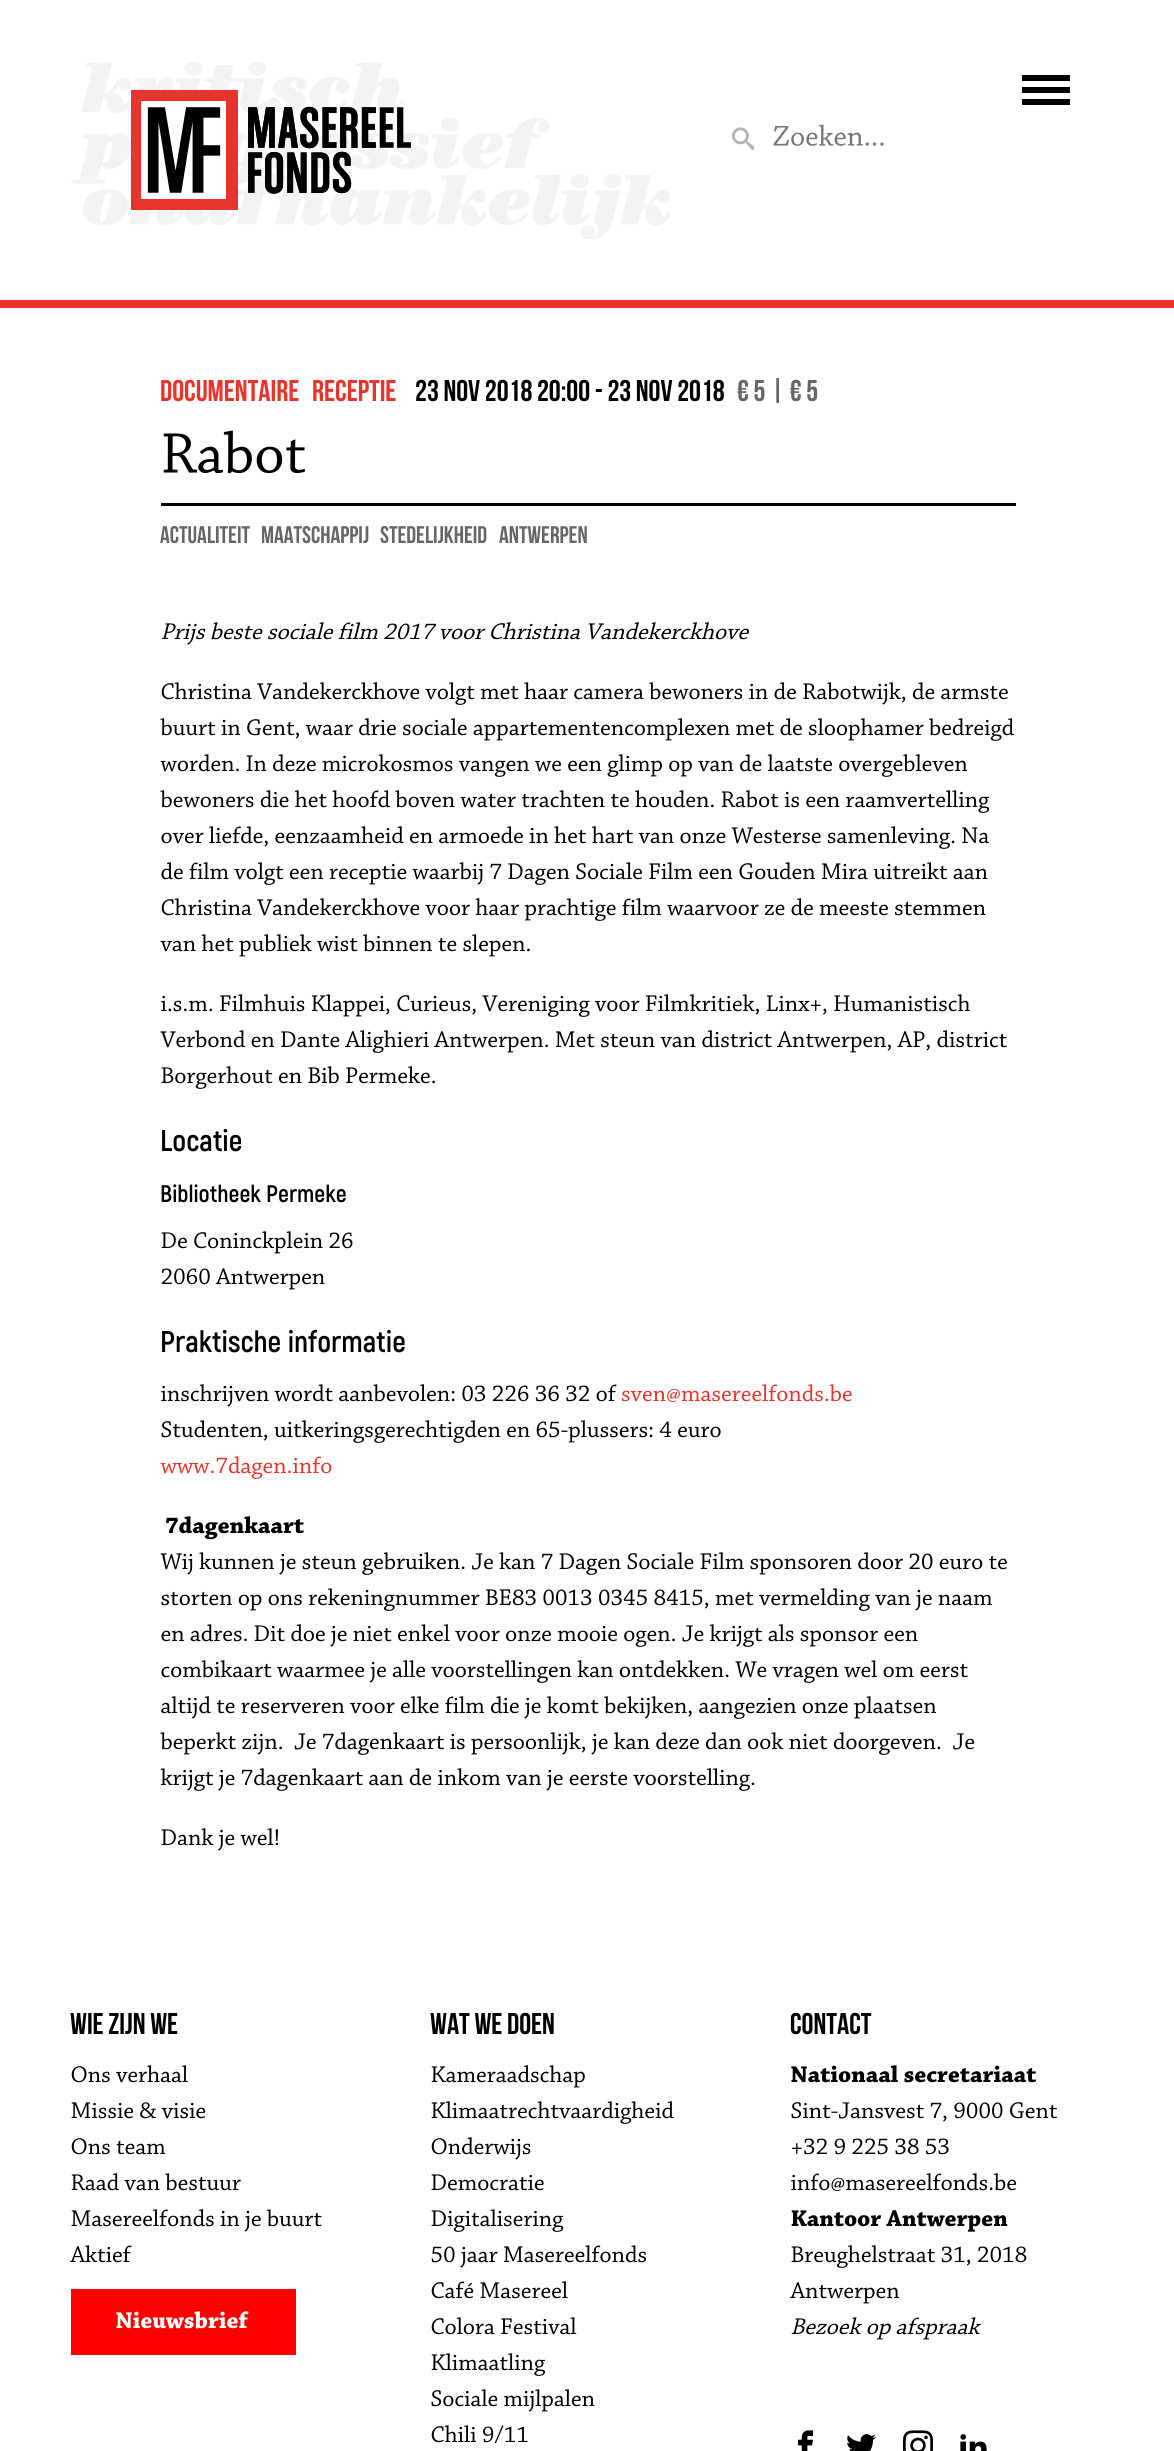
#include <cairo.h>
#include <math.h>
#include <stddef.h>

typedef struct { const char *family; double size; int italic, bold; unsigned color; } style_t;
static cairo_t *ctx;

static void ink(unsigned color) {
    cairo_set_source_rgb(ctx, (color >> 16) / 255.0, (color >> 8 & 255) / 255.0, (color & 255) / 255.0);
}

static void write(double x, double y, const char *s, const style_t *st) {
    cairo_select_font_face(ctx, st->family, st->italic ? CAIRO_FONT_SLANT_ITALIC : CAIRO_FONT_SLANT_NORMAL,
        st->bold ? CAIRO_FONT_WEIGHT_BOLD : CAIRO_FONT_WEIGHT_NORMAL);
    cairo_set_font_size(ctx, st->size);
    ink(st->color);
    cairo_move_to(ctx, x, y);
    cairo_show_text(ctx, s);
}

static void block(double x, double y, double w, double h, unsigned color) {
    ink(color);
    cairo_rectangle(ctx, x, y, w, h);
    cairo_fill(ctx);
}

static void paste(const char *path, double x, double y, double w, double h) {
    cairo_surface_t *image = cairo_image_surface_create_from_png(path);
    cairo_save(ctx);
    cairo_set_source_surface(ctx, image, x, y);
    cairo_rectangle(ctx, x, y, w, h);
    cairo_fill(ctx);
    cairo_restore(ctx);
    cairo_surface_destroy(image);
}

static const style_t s1 = {"Bebas Neue", 30, 0, 0, 0xe9332b};
static const style_t s2 = {"Bebas Neue", 30, 0, 0, 0x000000};
static const style_t s3 = {"Bebas Neue", 30, 0, 0, 0x666666};
static const style_t s4 = {"Bebas Neue", 24, 0, 0, 0x666666};
static const style_t s5 = {"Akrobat", 30, 0, 1, 0x000000};
static const style_t s6 = {"Akrobat", 24, 0, 1, 0x000000};

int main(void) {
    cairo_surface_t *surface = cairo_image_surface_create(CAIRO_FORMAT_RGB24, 1174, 2451);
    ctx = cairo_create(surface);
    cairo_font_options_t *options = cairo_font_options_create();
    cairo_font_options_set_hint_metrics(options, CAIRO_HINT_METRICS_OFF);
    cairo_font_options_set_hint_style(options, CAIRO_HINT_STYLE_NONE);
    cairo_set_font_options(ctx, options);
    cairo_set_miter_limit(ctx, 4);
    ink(0xffffff);
    cairo_paint(ctx);
    block(0, 300, 1174, 8, 0xe9332b);
    paste("pic1.png", 71, 62, 600, 177);
    paste("pic2.png", 131, 90, 280, 120);
    block(1022, 75, 48, 6, 0x000000);
    block(1022, 87, 48, 6, 0x000000);
    block(1022, 99, 48, 6, 0x000000);
    paste("pic3.png", 732, 127, 23, 23);
    paste("pic4.png", 773, 124, 111, 22);
    write(160, 401, "documentaire", &s1);
    write(312, 401, "Receptie", &s1);
    write(415, 401, "23 nov 2018 20:00 - 23 nov 2018", &s2);
    write(737, 401, "€ 5 | € 5", &s3);
    block(161, 503, 855, 3, 0x000000);
    paste("pic5.png", 163, 430, 143, 44);
    write(160, 543, "actualiteit", &s4);
    write(261, 543, "maatschappij", &s4);
    write(380, 543, "stedelijkheid", &s4);
    write(499, 543, "Antwerpen", &s4);
    paste("pic6.png", 161, 622, 588, 23);
    paste("pic7.png", 161, 682, 847, 23);
    paste("pic8.png", 160, 718, 854, 23);
    paste("pic9.png", 160, 754, 808, 23);
    paste("pic10.png", 160, 790, 830, 23);
    paste("pic11.png", 161, 826, 828, 23);
    paste("pic12.png", 161, 862, 827, 23);
    paste("pic13.png", 161, 898, 825, 23);
    paste("pic14.png", 160, 934, 370, 23);
    paste("pic15.png", 161, 994, 809, 23);
    paste("pic16.png", 160, 1030, 847, 23);
    paste("pic17.png", 161, 1066, 274, 23);
    write(160, 1151, "Locatie", &s5);
    write(160, 1202, "Bibliotheek Permeke", &s6);
    paste("pic18.png", 161, 1231, 192, 23);
    paste("pic19.png", 161, 1268, 164, 22);
    write(160, 1352, "Praktische informatie", &s5);
    paste("pic20.png", 161, 1384, 456, 23);
    paste("pic21.png", 621, 1384, 231, 18);
    paste("pic22.png", 161, 1420, 560, 23);
    paste("pic23.png", 160, 1456, 172, 23);
    paste("pic24.png", 166, 1516, 138, 24);
    paste("pic25.png", 160, 1552, 847, 23);
    paste("pic26.png", 161, 1588, 831, 23);
    paste("pic27.png", 161, 1624, 86, 18);
    paste("pic28.png", 254, 1624, 664, 23);
    paste("pic29.png", 161, 1660, 807, 23);
    paste("pic30.png", 161, 1696, 775, 23);
    paste("pic31.png", 160, 1732, 122, 23);
    paste("pic32.png", 294, 1732, 647, 23);
    paste("pic33.png", 953, 1733, 22, 17);
    paste("pic34.png", 160, 1768, 595, 23);
    paste("pic35.png", 161, 1828, 118, 23);
    write(70, 2034, "Wie zijn we", &s2);
    paste("pic36.png", 71, 2065, 117, 18);
    paste("pic37.png", 71, 2102, 135, 17);
    paste("pic38.png", 71, 2138, 95, 17);
    paste("pic39.png", 71, 2173, 170, 18);
    paste("pic40.png", 71, 2209, 251, 23);
    paste("pic41.png", 70, 2245, 62, 18);
    block(71, 2289, 225, 66, 0xff0000);
    paste("pic42.png", 116, 2311, 133, 18);
    write(430, 2034, "Wat we doen", &s2);
    paste("pic43.png", 431, 2065, 154, 23);
    paste("pic44.png", 431, 2101, 243, 23);
    paste("pic45.png", 431, 2137, 100, 23);
    paste("pic46.png", 431, 2174, 113, 17);
    paste("pic47.png", 431, 2209, 133, 23);
    paste("pic48.png", 431, 2245, 215, 23);
    paste("pic49.png", 431, 2281, 137, 18);
    paste("pic50.png", 431, 2317, 146, 18);
    paste("pic51.png", 431, 2353, 114, 23);
    paste("pic52.png", 431, 2389, 164, 23);
    paste("pic53.png", 431, 2425, 97, 19);
    write(790, 2034, "Contact", &s2);
    paste("pic54.png", 791, 2065, 245, 18);
    paste("pic55.png", 791, 2102, 266, 20);
    paste("pic56.png", 792, 2138, 157, 17);
    paste("pic57.png", 791, 2173, 226, 18);
    paste("pic58.png", 791, 2210, 217, 22);
    paste("pic59.png", 791, 2245, 236, 23);
    paste("pic60.png", 790, 2282, 109, 22);
    paste("pic61.png", 791, 2317, 190, 23);
    paste("pic62.png", 798, 2430, 15, 21);
    paste("pic63.png", 847, 2434, 29, 17);
    paste("pic64.png", 903, 2430, 30, 21);
    paste("pic65.png", 960, 2434, 27, 17);
    cairo_surface_write_to_png(surface, "screenshot.png");
    cairo_font_options_destroy(options);
    cairo_destroy(ctx);
    cairo_surface_destroy(surface);
    return 0;
}
